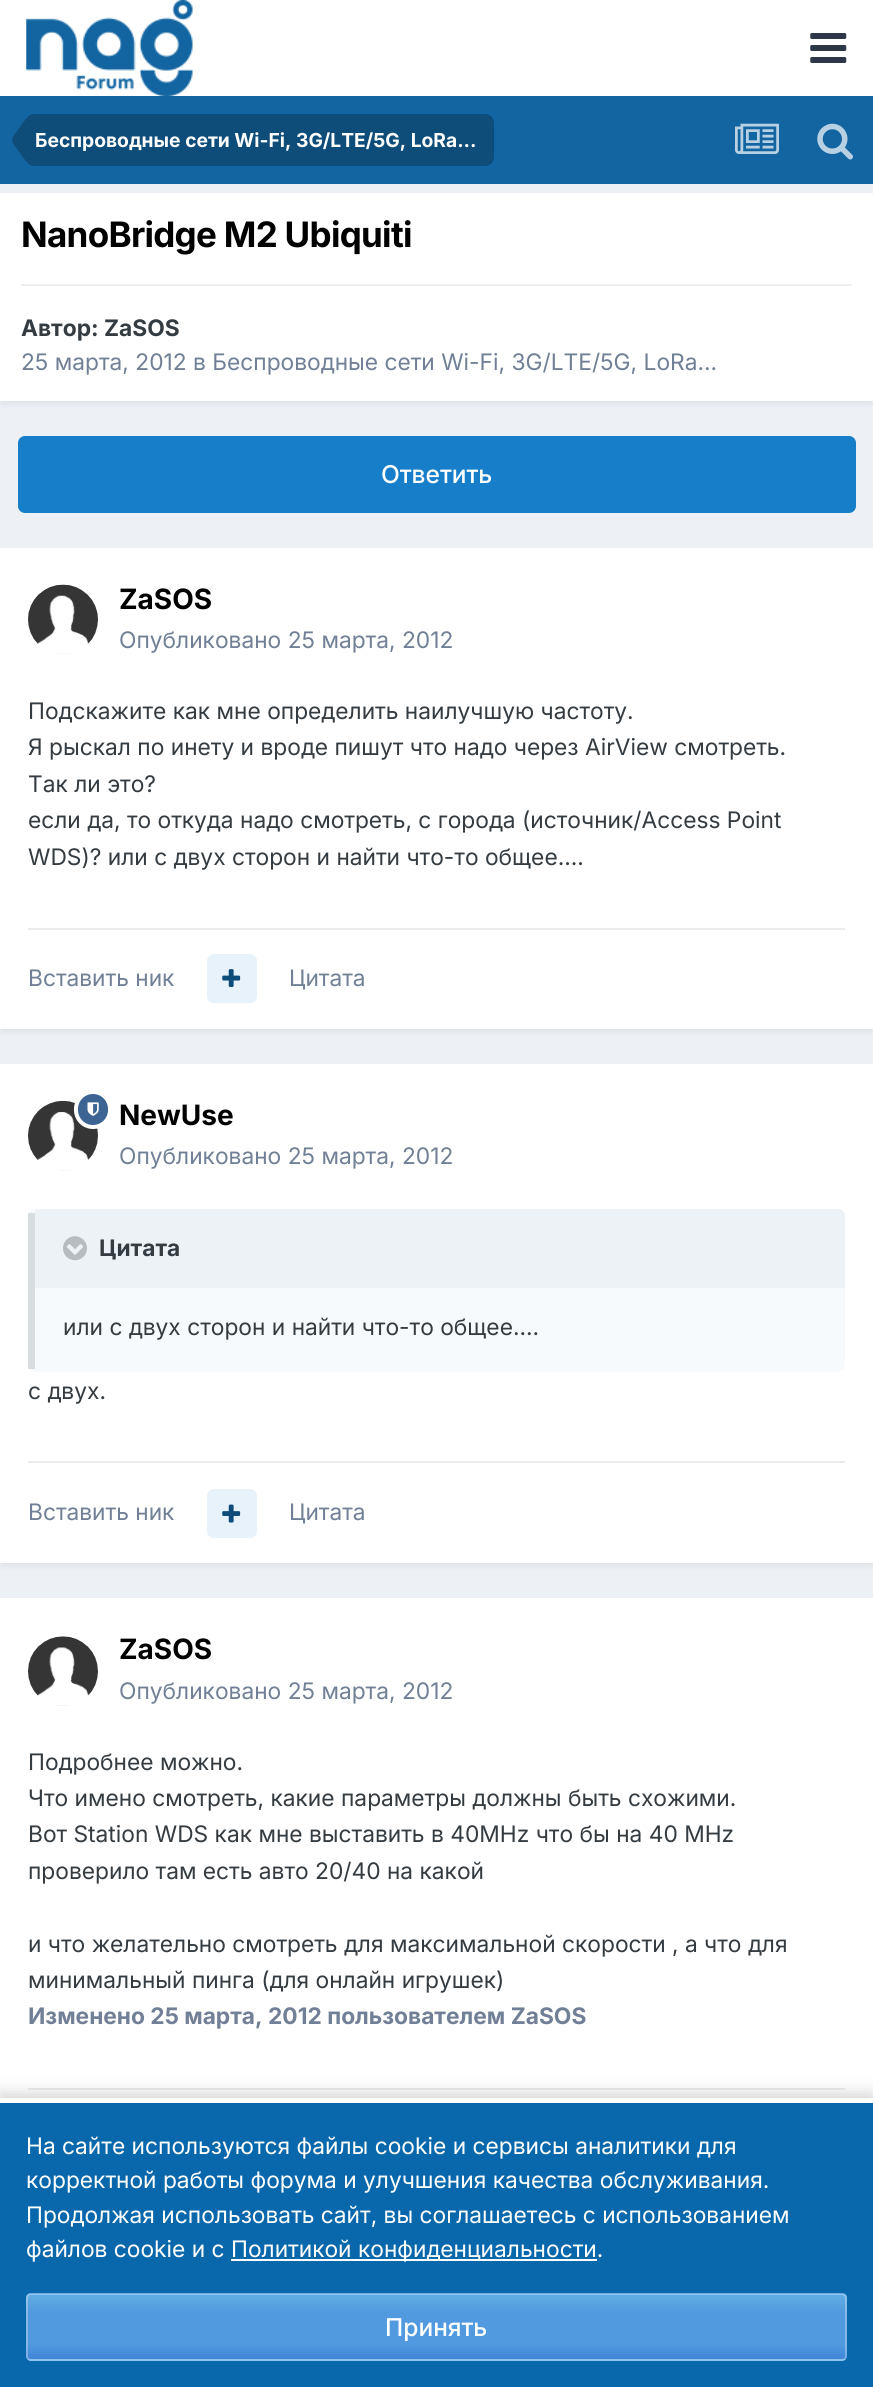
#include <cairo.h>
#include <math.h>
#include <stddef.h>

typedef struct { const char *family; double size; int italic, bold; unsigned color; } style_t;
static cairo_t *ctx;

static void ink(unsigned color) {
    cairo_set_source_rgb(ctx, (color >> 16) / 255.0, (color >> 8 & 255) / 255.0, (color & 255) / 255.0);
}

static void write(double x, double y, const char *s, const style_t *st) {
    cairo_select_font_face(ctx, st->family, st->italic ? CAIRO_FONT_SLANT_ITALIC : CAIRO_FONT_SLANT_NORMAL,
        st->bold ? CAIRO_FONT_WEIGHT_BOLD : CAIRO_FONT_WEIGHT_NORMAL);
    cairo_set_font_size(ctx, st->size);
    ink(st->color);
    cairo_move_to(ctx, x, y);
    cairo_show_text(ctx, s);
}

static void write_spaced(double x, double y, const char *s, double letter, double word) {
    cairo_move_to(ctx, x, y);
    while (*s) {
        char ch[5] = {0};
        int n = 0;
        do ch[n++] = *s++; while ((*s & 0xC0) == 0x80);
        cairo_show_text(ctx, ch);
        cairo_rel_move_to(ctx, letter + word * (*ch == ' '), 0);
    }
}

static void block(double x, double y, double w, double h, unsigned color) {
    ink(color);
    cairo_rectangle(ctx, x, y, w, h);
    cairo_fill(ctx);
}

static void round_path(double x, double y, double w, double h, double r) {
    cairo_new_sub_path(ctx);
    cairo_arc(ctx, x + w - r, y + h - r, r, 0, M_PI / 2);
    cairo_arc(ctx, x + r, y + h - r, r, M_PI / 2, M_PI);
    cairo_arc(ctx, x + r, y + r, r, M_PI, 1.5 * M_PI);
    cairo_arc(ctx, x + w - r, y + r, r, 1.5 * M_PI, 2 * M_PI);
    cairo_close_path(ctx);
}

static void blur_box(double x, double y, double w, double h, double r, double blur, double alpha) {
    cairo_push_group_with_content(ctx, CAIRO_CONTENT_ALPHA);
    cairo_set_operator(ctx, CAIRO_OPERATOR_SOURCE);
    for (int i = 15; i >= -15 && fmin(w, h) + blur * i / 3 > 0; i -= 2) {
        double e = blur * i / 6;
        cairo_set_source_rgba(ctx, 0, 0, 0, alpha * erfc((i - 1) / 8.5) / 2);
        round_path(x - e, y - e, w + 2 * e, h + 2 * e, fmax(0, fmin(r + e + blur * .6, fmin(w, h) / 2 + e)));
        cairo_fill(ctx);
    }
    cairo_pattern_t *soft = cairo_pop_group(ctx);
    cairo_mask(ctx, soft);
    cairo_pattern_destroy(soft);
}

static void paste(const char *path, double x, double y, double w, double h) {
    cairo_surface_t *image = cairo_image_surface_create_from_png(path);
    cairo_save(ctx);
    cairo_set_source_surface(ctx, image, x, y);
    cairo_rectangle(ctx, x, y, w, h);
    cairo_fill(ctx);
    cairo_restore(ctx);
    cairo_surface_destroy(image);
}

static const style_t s1 = {"Inter", 19.25, 0, 1, 0xffffff};
static const style_t s2 = {"Inter", 22.75, 0, 1, 0x353c41};
static const style_t s3 = {"Inter", 22.75, 0, 0, 0x718096};
static const style_t s4 = {"Inter Medium", 24.5, 0, 0, 0xffffff};
static const style_t s5 = {"Inter", 28, 0, 1, 0x000000};
static const style_t s6 = {"Inter", 22.75, 0, 0, 0x353c41};
static const style_t s7 = {"Inter", 22.75, 0, 1, 0x718096};
static const style_t s8 = {"Inter", 22.75, 0, 0, 0xffffff};

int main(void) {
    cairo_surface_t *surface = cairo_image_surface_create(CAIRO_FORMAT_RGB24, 873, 2387);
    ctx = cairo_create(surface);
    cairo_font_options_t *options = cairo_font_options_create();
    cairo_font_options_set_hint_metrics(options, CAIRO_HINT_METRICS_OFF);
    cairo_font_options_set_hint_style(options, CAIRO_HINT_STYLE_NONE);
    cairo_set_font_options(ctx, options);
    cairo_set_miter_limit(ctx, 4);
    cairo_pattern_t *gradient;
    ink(0xedf0f4);
    cairo_paint(ctx);
    block(0, 0, 873, 96, 0xffffff);
    paste("pic1.png", 26, 0, 167, 96);
    paste("pic2.png", 810, 33, 37, 30);
    block(0, 96, 873, 88, 0x1265a1);
    ink(0x0e4c79);
    cairo_new_path(ctx);
    cairo_move_to(ctx, 35, 114);
    cairo_line_to(ctx, 485, 114);
    cairo_curve_to(ctx, 490, 114, 494, 118, 494, 123);
    cairo_line_to(ctx, 494, 157);
    cairo_curve_to(ctx, 494, 162, 490, 166, 485, 166);
    cairo_line_to(ctx, 35, 166);
    cairo_close_path(ctx);
    cairo_fill(ctx);
    cairo_new_path(ctx);
    cairo_move_to(ctx, 35, 140);
    cairo_line_to(ctx, 35, 166);
    cairo_curve_to(ctx, 31, 166, 27.5, 164, 25, 160);
    cairo_line_to(ctx, 12.5, 142.5);
    cairo_line_to(ctx, 12, 140);
    cairo_close_path(ctx);
    cairo_move_to(ctx, 35, 140);
    cairo_line_to(ctx, 12, 140);
    cairo_line_to(ctx, 12.5, 137.5);
    cairo_line_to(ctx, 25, 120);
    cairo_curve_to(ctx, 27.5, 116, 31, 114, 35, 114);
    cairo_close_path(ctx);
    cairo_fill(ctx);
    write(35, 147, "Беспроводные сети Wi-Fi, 3G/LTE/5G, LoRa...", &s1);
    paste("pic3.png", 735, 123, 44, 31);
    paste("pic4.png", 817, 123, 36, 37);
    ink(0x2d3748);
    blur_box(2, 198, 870, 205, 0, 3.5, 0.1);
    block(0, 193, 873, 208, 0xffffff);
    cairo_set_font_size(ctx, 35);
    ink(0x000000);
    write_spaced(21, 247, "NanoBridge M2 Ubiquiti", -0.7, 0);
    block(21, 284, 831, 2, 0xefeff0);
    write(21, 336, "Автор: ZaSOS", &s2);
    write(21, 370, "25 марта, 2012 в Беспроводные сети Wi-Fi, 3G/LTE/5G, LoRa...", &s3);
    ink(0x177ec9);
    round_path(18, 436, 838, 77, 7);
    cairo_fill(ctx);
    write(381, 483, "Ответить", &s4);
    ink(0x2d3748);
    blur_box(2, 553, 870, 478, 0, 3.5, 0.1);
    block(0, 548, 873, 481, 0xffffff);
    paste("pic5.png", 28, 584, 70, 70);
    write(119, 609, "ZaSOS", &s5);
    write(119, 648, "Опубликовано 25 марта, 2012", &s3);
    write(28, 719, "Подскажите как мне определить наилучшую частоту.", &s6);
    write(28, 755, "Я рыскал по инету и вроде пишут что надо через AirView смотреть.", &s6);
    write(28, 792, "Так ли это?", &s6);
    write(28, 828, "если да, то откуда надо смотреть, с города (источник/Access Point", &s6);
    write(28, 865, "WDS)? или с двух сторон и найти что-то общее....", &s6);
    block(28, 928, 817, 2, 0xebecec);
    write(28, 986, "Вставить ник", &s3);
    ink(0xe8f2fa);
    round_path(207, 954, 50, 49, 7);
    cairo_fill(ctx);
    paste("pic6.png", 222, 969, 19, 18);
    write(289, 986, "Цитата", &s3);
    ink(0x2d3748);
    blur_box(2, 1069, 870, 496, 0, 3.5, 0.1);
    block(0, 1064, 873, 499, 0xffffff);
    paste("pic8.png", 28, 1100, 70, 71);
    ink(0x3d6594);
    round_path(76, 1092, 34, 35, 17);
    cairo_fill_preserve(ctx);
    ink(0xffffff);
    cairo_set_line_width(ctx, 4);
    cairo_stroke(ctx);
    paste("pic7.png", 87, 1102, 12, 14);
    write(119, 1125, "NewUse", &s5);
    write(119, 1164, "Опубликовано 25 марта, 2012", &s3);
    ink(0xf7fafc);
    round_path(28, 1209, 817, 163, 7);
    cairo_fill(ctx);
    cairo_set_source_rgba(ctx, 0.176, 0.216, 0.282, 0.15);
    cairo_rectangle(ctx, 28, 1213, 7, 156);
    cairo_fill(ctx);
    ink(0xedf2f7);
    cairo_new_path(ctx);
    cairo_move_to(ctx, 35, 1209);
    cairo_line_to(ctx, 838, 1209);
    cairo_curve_to(ctx, 842, 1209, 845, 1212, 845, 1216);
    cairo_line_to(ctx, 845, 1288);
    cairo_line_to(ctx, 35, 1288);
    cairo_close_path(ctx);
    cairo_fill(ctx);
    paste("pic9.png", 63, 1236, 24, 25);
    write(99, 1256, "Цитата", &s2);
    write(63, 1335, "или с двух сторон и найти что-то общее....", &s6);
    write(28, 1399, "с двух.", &s6);
    block(28, 1461, 817, 2, 0xebecec);
    write(28, 1520, "Вставить ник", &s3);
    ink(0xe8f2fa);
    round_path(207, 1489, 50, 49, 7);
    cairo_fill(ctx);
    paste("pic10.png", 222, 1504, 19, 19);
    write(289, 1520, "Цитата", &s3);
    block(0, 1598, 873, 500, 0xffffff);
    paste("pic11.png", 28, 1636, 70, 70);
    write(119, 1659, "ZaSOS", &s5);
    write(119, 1699, "Опубликовано 25 марта, 2012", &s3);
    write(28, 1770, "Подробнее можно.", &s6);
    write(28, 1806, "Что имено смотреть, какие параметры должны быть схожими.", &s6);
    write(28, 1842, "Вот Station WDS как мне выставить в 40МHz что бы на 40 MHz", &s6);
    write(28, 1879, "проверило там есть авто 20/40 на какой", &s6);
    write(28, 1952, "и что желательно смотреть для максимальной скорости , а что для", &s6);
    write(28, 1988, "минимальный пинга (для онлайн игрушек)", &s6);
    write(28, 2024, "Изменено 25 марта, 2012 пользователем ZaSOS", &s7);
    block(28, 2088, 817, 2, 0xebecec);
    ink(0x000000);
    blur_box(0, 2095, 873, 289, 0, 9, 0.2);
    block(0, 2103, 873, 284, 0x0968ac);
    block(0, 2098, 873, 5, 0xffffff);
    write(26, 2154, "На сайте используются файлы cookie и сервисы аналитики для", &s8);
    write(26, 2188, "корректной работы форума и улучшения качества обслуживания.", &s8);
    write(26, 2223, "Продолжая использовать сайт, вы соглашаетесь с использованием", &s8);
    write(26, 2257, "файлов cookie и с", &s8);
    block(231, 2259, 366, 2, 0xffffff);
    write(231, 2257, "Политикой конфиденциальности.", &s8);
    cairo_save(ctx);
    round_path(26, 2293, 821, 68, 5);
    cairo_clip(ctx);
    gradient = cairo_pattern_create_linear(437, 2230, 437, 2294);
    cairo_pattern_add_color_stop_rgba(gradient, 0, 0.38, 0.682, 0.894, 1);
    cairo_pattern_add_color_stop_rgba(gradient, 0.28, 0.318, 0.604, 0.875, 1);
    cairo_pattern_add_color_stop_rgba(gradient, 0.77, 0.318, 0.604, 0.875, 1);
    cairo_pattern_add_color_stop_rgba(gradient, 1, 0.251, 0.522, 0.847, 1);
    cairo_set_source(ctx, gradient);
    cairo_pattern_destroy(gradient);
    cairo_rectangle(ctx, 26, 2293, 821, 1);
    cairo_fill(ctx);
    gradient = cairo_pattern_create_linear(437, 2294, 437, 2359);
    cairo_pattern_add_color_stop_rgba(gradient, 0, 0.38, 0.682, 0.894, 1);
    cairo_pattern_add_color_stop_rgba(gradient, 0.28, 0.318, 0.604, 0.875, 1);
    cairo_pattern_add_color_stop_rgba(gradient, 0.77, 0.318, 0.604, 0.875, 1);
    cairo_pattern_add_color_stop_rgba(gradient, 1, 0.251, 0.522, 0.847, 1);
    cairo_set_source(ctx, gradient);
    cairo_pattern_destroy(gradient);
    cairo_rectangle(ctx, 26, 2294, 821, 65);
    cairo_fill(ctx);
    gradient = cairo_pattern_create_linear(437, 2359, 437, 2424);
    cairo_pattern_add_color_stop_rgba(gradient, 0, 0.38, 0.682, 0.894, 1);
    cairo_pattern_add_color_stop_rgba(gradient, 0.28, 0.318, 0.604, 0.875, 1);
    cairo_pattern_add_color_stop_rgba(gradient, 0.77, 0.318, 0.604, 0.875, 1);
    cairo_pattern_add_color_stop_rgba(gradient, 1, 0.251, 0.522, 0.847, 1);
    cairo_set_source(ctx, gradient);
    cairo_pattern_destroy(gradient);
    cairo_rectangle(ctx, 26, 2359, 821, 2);
    cairo_fill(ctx);
    cairo_restore(ctx);
    round_path(27, 2294, 819, 66, 4);
    cairo_set_source_rgba(ctx, 1, 1, 1, 0.3);
    cairo_set_line_width(ctx, 2);
    cairo_stroke(ctx);
    write(385, 2336, "Принять", &s4);
    cairo_surface_write_to_png(surface, "screenshot.png");
    cairo_font_options_destroy(options);
    cairo_destroy(ctx);
    cairo_surface_destroy(surface);
    return 0;
}
